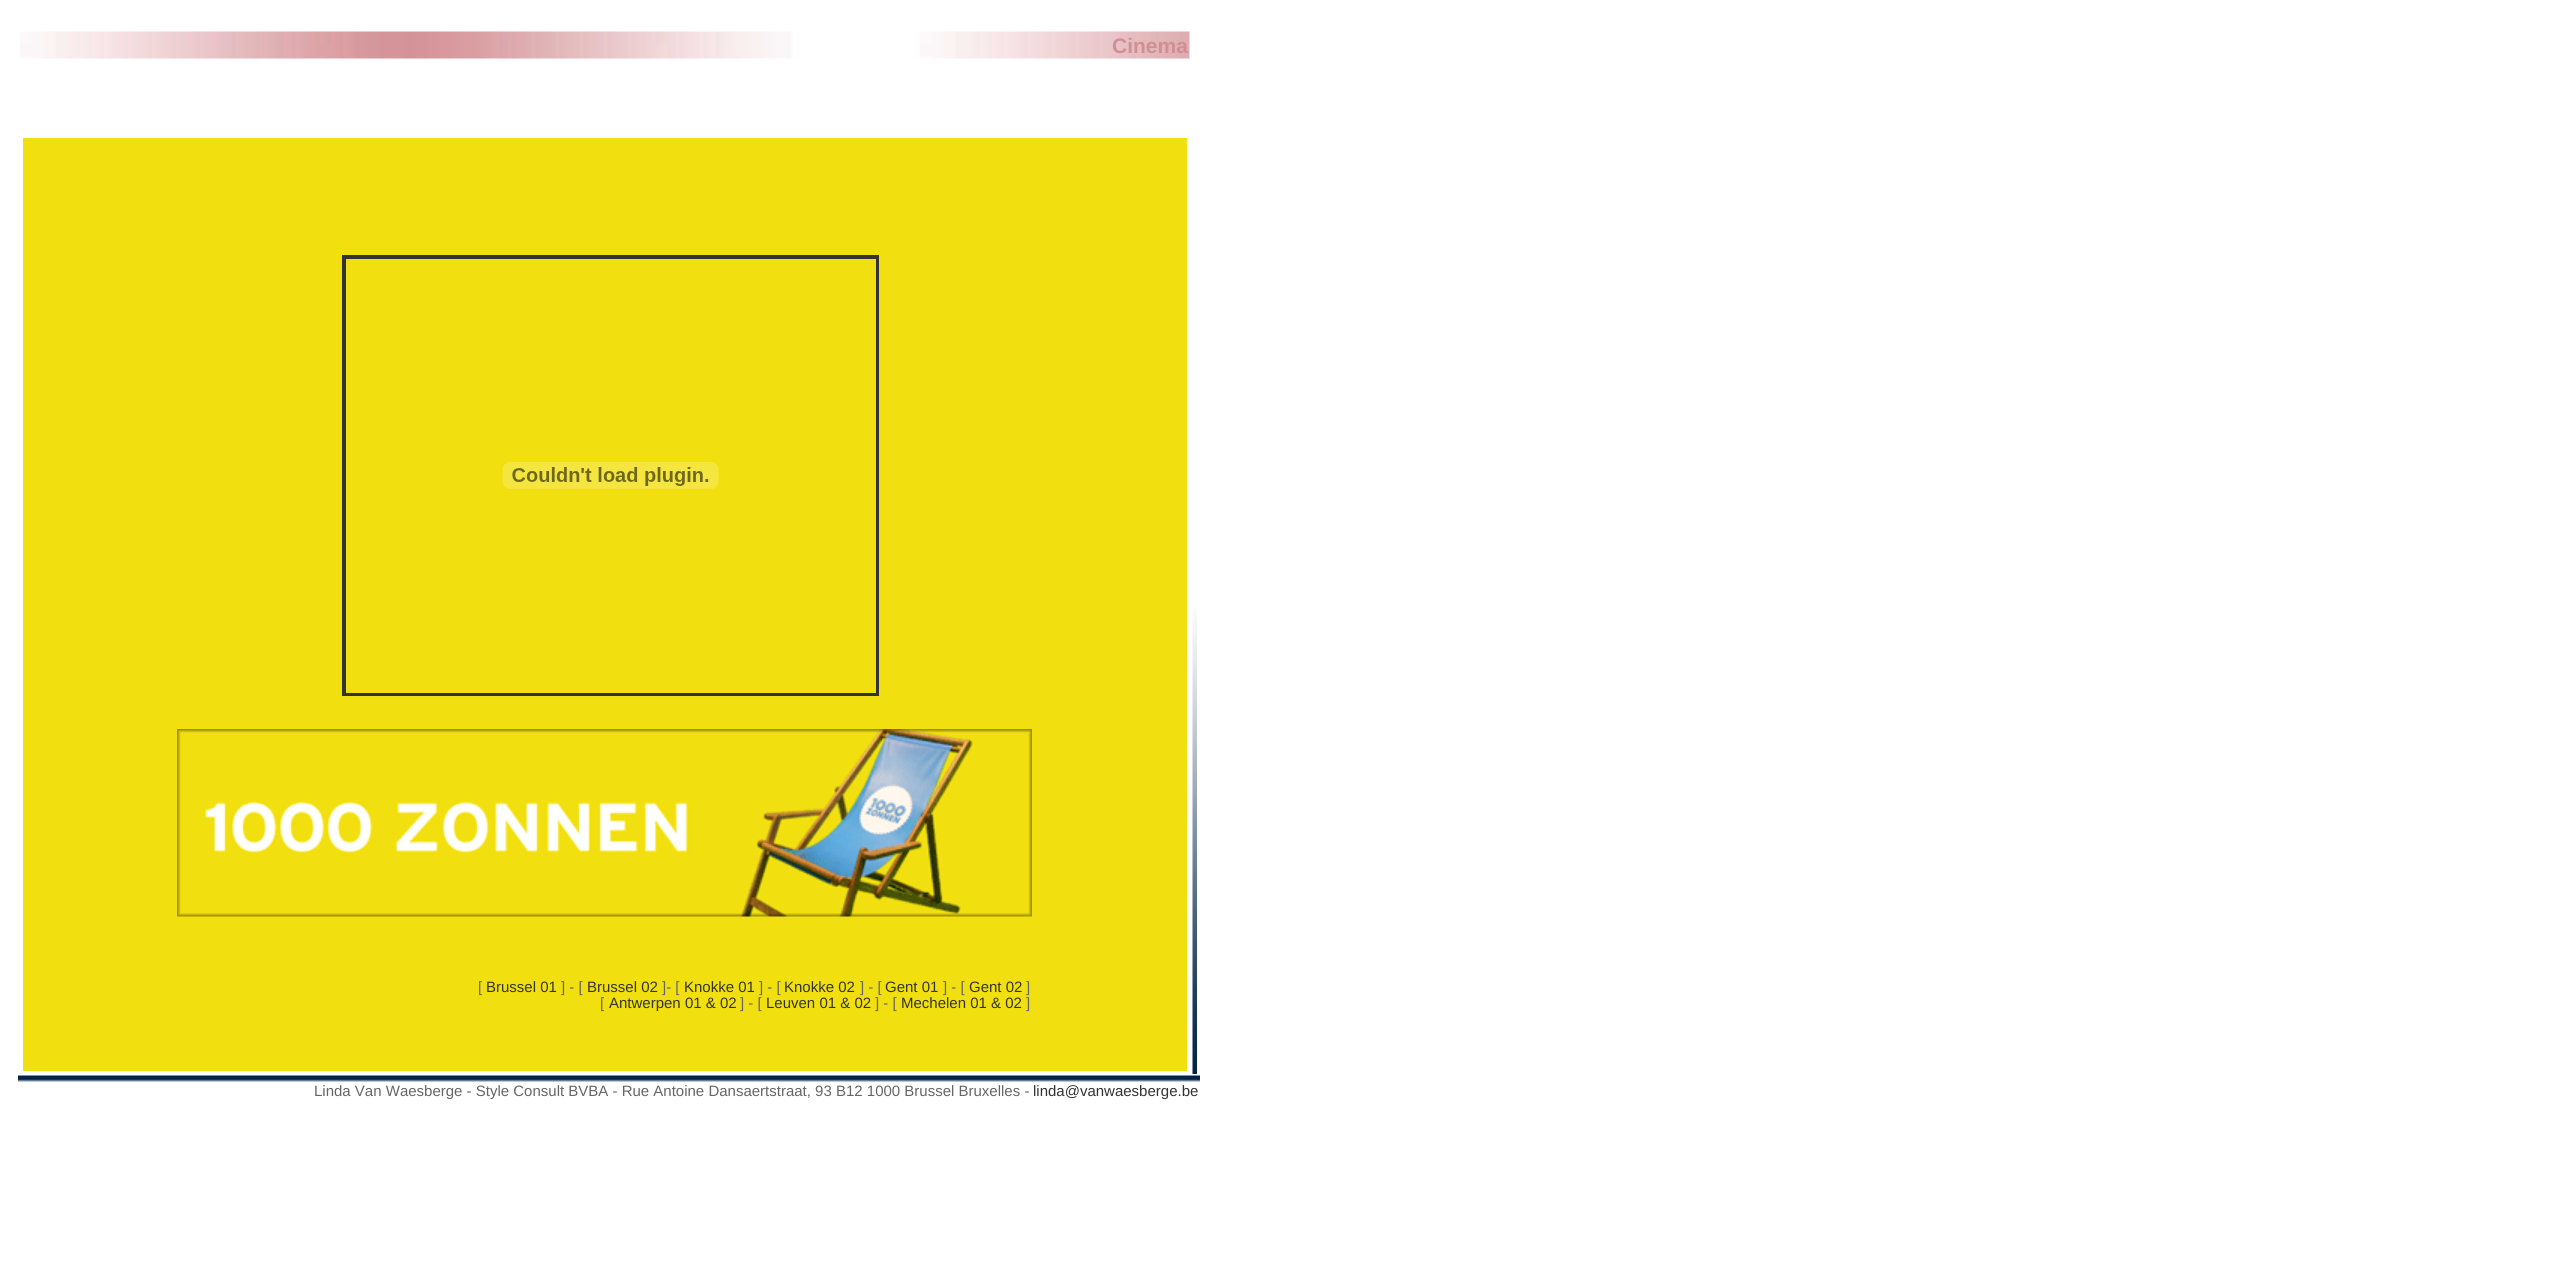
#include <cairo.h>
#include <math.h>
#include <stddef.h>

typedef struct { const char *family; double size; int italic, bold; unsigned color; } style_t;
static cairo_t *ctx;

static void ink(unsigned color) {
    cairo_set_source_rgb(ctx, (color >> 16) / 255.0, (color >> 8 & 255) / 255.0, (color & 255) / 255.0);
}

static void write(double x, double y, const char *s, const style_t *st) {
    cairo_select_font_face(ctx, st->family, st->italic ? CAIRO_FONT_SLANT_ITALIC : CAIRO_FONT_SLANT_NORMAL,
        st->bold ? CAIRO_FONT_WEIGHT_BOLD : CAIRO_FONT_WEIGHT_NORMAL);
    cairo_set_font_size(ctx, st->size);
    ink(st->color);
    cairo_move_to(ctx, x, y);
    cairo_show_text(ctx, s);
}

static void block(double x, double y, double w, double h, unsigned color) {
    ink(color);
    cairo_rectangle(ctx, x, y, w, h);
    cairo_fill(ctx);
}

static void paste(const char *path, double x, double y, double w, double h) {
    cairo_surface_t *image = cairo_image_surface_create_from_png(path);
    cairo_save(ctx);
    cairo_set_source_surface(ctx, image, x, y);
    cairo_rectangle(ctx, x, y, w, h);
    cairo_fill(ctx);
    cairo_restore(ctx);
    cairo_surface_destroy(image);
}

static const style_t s1 = {"Liberation Sans", 21, 0, 1, 0xd18f93};
static const style_t s2 = {"Liberation Sans", 15, 0, 0, 0x666666};
static const style_t s3 = {"Liberation Sans", 15, 0, 0, 0x333333};

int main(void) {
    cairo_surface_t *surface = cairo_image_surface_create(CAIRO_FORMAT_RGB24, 2560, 1287);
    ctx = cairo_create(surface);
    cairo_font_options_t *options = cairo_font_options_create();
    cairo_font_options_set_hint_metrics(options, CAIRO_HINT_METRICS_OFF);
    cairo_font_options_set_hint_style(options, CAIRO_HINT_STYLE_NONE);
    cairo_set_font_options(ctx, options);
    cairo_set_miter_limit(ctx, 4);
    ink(0xffffff);
    cairo_paint(ctx);
    paste("pic1.png", 20, 31, 1170, 28);
    write(1112, 53, "Cinema", &s1);
    block(23, 138, 1164, 933, 0xf1df0f);
    cairo_rectangle(ctx, 343, 256, 535, 439);
    ink(0x333333);
    cairo_stroke(ctx);
    cairo_rectangle(ctx, 345, 258, 532, 436);
    cairo_stroke(ctx);
    paste("pic2.png", 502, 462, 217, 27);
    paste("pic3.png", 177, 729, 855, 188);
    write(478, 992, "[", &s2);
    write(486, 992, "Brussel 01", &s3);
    write(561, 992, "] - [", &s2);
    write(587, 992, "Brussel 02", &s3);
    write(662, 992, "]- [", &s2);
    write(684, 992, "Knokke 01", &s3);
    write(759, 992, "] - [", &s2);
    write(784, 992, "Knokke 02", &s3);
    write(860, 992, "] - [", &s2);
    write(885, 992, "Gent 01", &s3);
    write(943, 992, "] - [", &s2);
    write(969, 992, "Gent 02", &s3);
    write(1026, 992, "]", &s2);
    write(600, 1008, "[", &s2);
    write(609, 1008, "Antwerpen 01 & 02", &s3);
    write(740, 1008, "] - [", &s2);
    write(766, 1008, "Leuven 01 & 02", &s3);
    write(875, 1008, "] - [", &s2);
    write(901, 1008, "Mechelen 01 & 02", &s3);
    write(1026, 1008, "]", &s2);
    paste("pic4.png", 1192, 608, 5, 466);
    paste("pic5.png", 18, 1075, 1182, 7);
    write(314, 1096, "Linda Van Waesberge - Style Consult BVBA - Rue Antoine Dansaertstraat, 93 B12 1000 Brussel Bruxelles -", &s2);
    write(1033, 1096, "linda@vanwaesberge.be", &s3);
    cairo_surface_write_to_png(surface, "screenshot.png");
    cairo_font_options_destroy(options);
    cairo_destroy(ctx);
    cairo_surface_destroy(surface);
    return 0;
}
